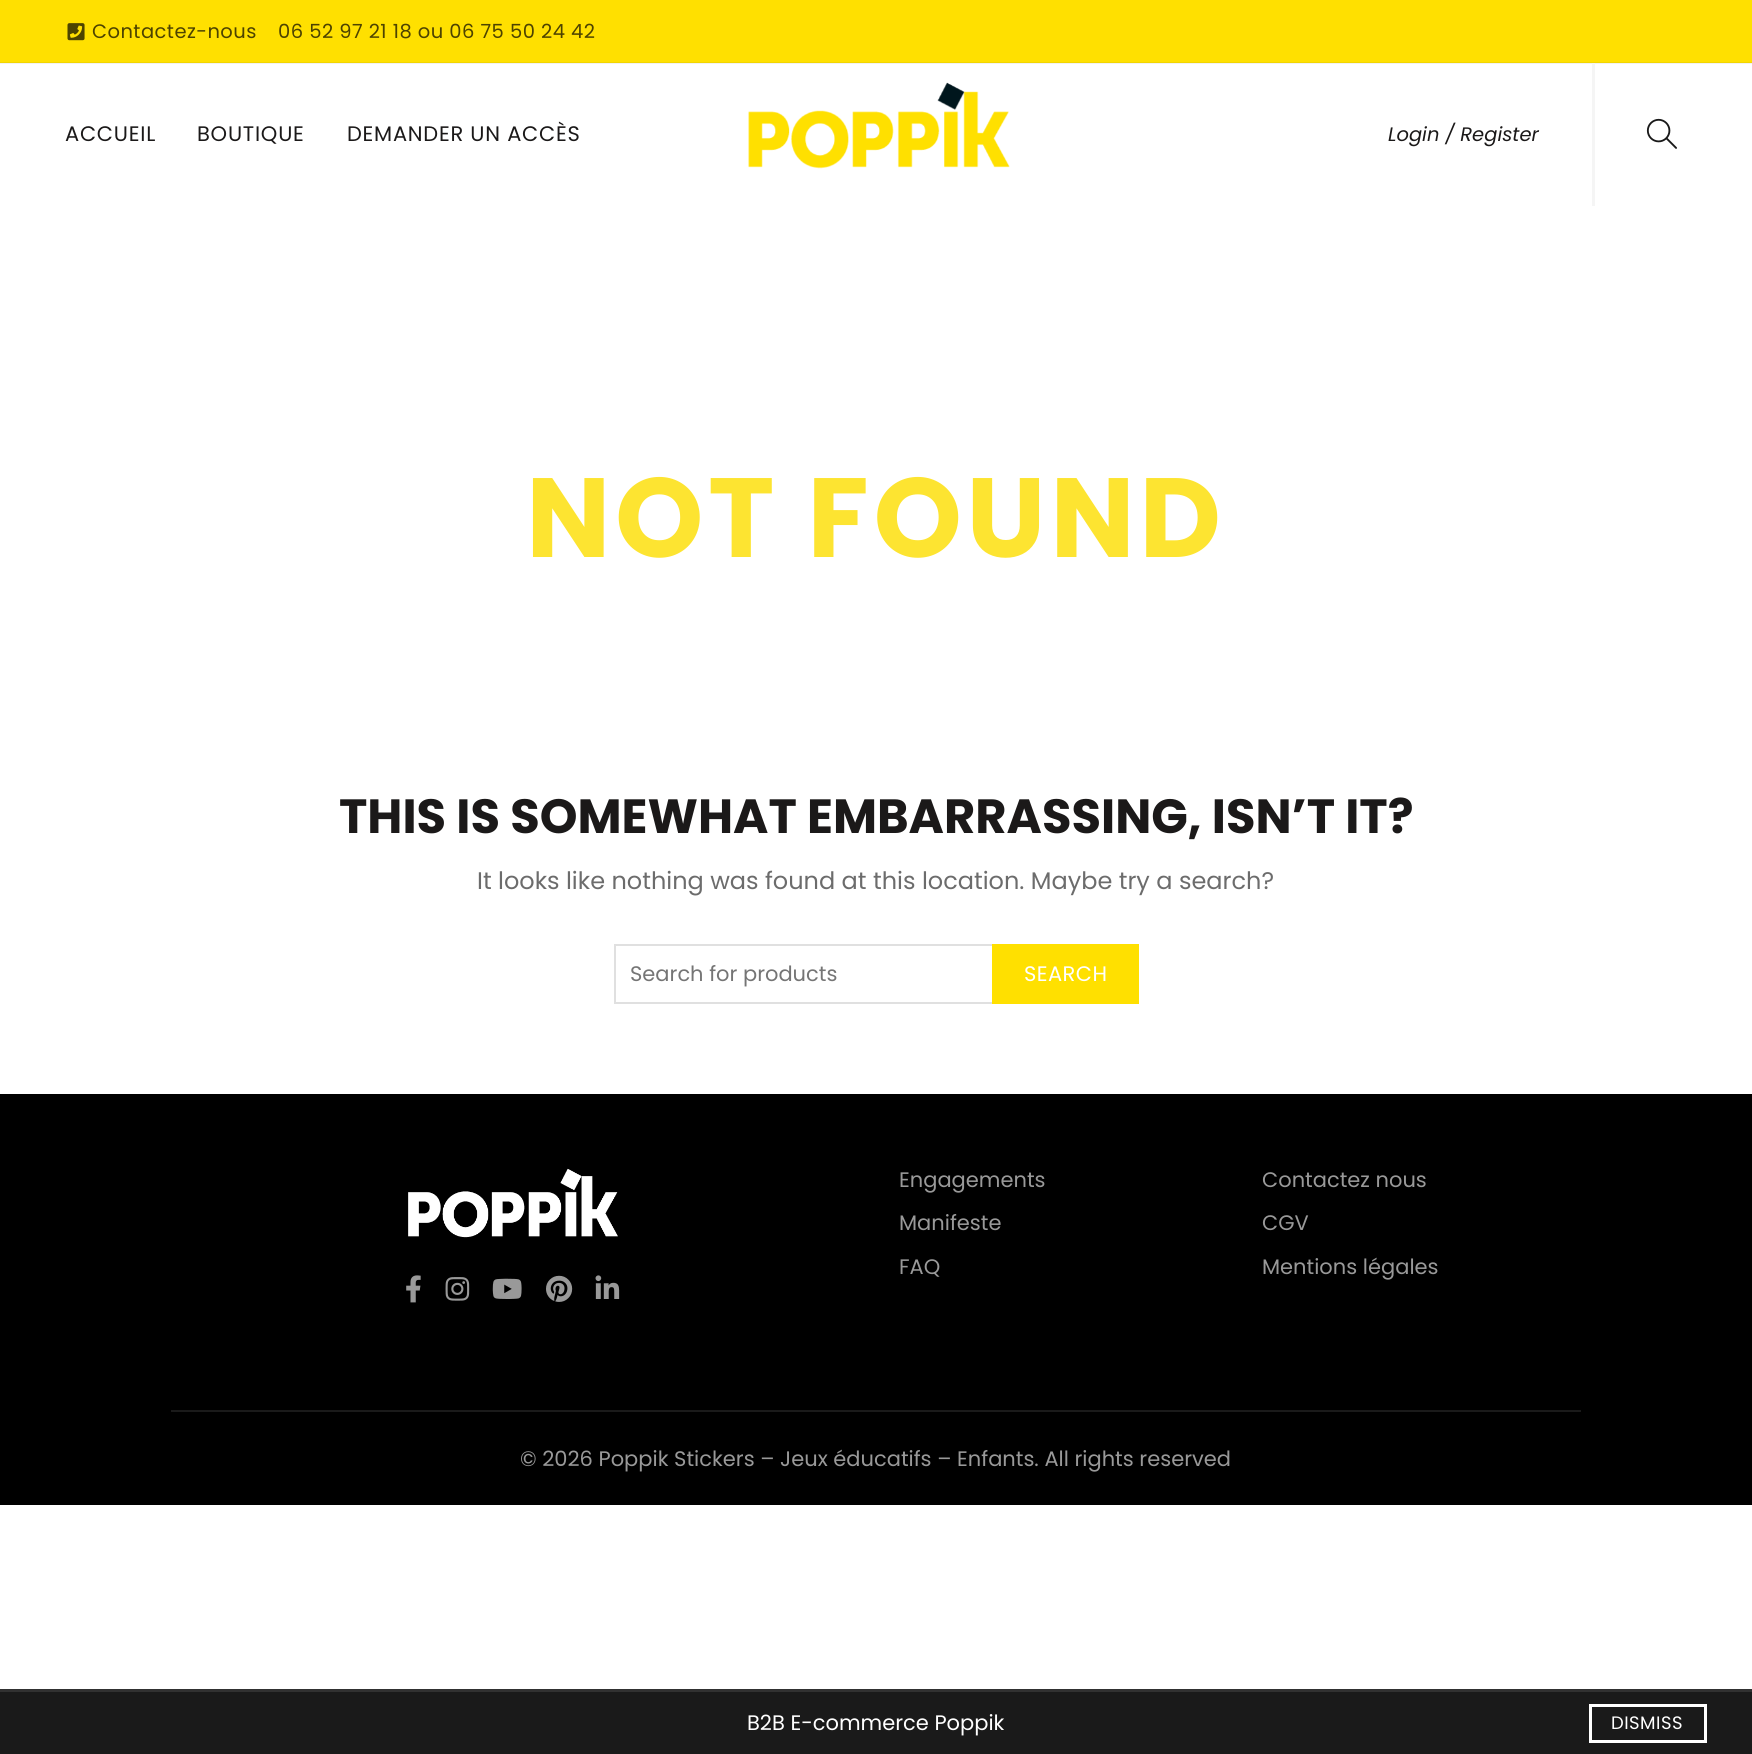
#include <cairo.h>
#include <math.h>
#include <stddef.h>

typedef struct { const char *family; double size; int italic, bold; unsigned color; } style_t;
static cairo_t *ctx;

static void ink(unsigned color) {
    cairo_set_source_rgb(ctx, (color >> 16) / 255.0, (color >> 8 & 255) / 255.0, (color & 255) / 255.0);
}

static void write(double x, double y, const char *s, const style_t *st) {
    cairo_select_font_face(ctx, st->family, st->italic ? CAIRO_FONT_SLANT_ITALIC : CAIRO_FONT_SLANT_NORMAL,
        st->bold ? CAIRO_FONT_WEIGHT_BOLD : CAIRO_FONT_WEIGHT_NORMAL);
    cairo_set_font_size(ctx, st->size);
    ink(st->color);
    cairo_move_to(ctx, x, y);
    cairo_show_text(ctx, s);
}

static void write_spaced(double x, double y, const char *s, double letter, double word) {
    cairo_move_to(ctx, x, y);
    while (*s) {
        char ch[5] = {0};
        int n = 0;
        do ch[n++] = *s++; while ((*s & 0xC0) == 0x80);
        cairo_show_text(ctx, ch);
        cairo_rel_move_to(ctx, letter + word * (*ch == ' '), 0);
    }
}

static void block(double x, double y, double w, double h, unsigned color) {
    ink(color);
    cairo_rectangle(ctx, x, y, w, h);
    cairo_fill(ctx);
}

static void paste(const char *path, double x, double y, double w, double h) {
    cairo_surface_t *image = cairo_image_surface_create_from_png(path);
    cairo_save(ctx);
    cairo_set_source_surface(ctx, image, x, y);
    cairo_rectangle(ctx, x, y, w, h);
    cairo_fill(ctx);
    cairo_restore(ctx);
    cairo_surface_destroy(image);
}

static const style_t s1 = {"Poppins", 19.5, 1, 0, 0x1b1919};
static const style_t s2 = {"Poppins", 48, 0, 1, 0x1b1919};
static const style_t s3 = {"Poppins", 24, 0, 0, 0x6c6c6c};
static const style_t s4 = {"Poppins", 21, 0, 0, 0x757575};
static const style_t s5 = {"Poppins", 21, 0, 0, 0x999999};
static const style_t s6 = {"Poppins", 21, 0, 0, 0xffffff};

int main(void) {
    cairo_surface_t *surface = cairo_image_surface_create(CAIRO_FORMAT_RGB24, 1752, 1754);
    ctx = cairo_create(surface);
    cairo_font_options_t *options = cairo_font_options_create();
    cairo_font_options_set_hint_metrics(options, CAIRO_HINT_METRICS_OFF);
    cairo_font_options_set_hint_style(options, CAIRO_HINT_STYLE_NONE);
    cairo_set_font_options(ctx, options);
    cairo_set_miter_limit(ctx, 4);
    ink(0xffffff);
    cairo_paint(ctx);
    block(0, 63, 1752, 1, 0xf2f2f2);
    block(0, 0, 1752, 62, 0xffe000);
    block(0, 62, 1752, 1, 0xf2d500);
    paste("pic1.png", 67, 23, 18, 18);
    cairo_select_font_face(ctx, "Poppins", CAIRO_FONT_SLANT_NORMAL, CAIRO_FONT_WEIGHT_NORMAL);
    cairo_set_font_size(ctx, 19.5);
    ink(0x4d4300);
    write_spaced(92, 38, "Contactez-nous", 0.45, 0);
    write_spaced(278, 38, "06 52 97 21 18 ou 06 75 50 24 42", 0.45, 0);
    cairo_set_font_size(ctx, 21);
    ink(0x1b1919);
    write_spaced(65, 141, "ACCUEIL", 0.75, 0);
    write_spaced(197, 141, "BOUTIQUE", 0.75, 0);
    write_spaced(347, 141, "DEMANDER UN ACCÈS", 0.75, 0);
    paste("pic2.png", 748, 82, 262, 87);
    block(1592, 63, 3, 143, 0xf5f5f5);
    write(1388, 141, "Login / Register", &s1);
    paste("pic3.png", 1646, 118, 31, 31);
    cairo_select_font_face(ctx, "Poppins", CAIRO_FONT_SLANT_NORMAL, CAIRO_FONT_WEIGHT_BOLD);
    cairo_set_font_size(ctx, 112.5);
    ink(0xfde431);
    write_spaced(526, 557, "NOT FOUND", 4.5, 0);
    write(339, 833, "THIS IS SOMEWHAT EMBARRASSING, ISN’T IT?", &s2);
    write(477, 889, "It looks like nothing was found at this location. Maybe try a search?", &s3);
    cairo_rectangle(ctx, 615, 945, 523, 58);
    ink(0xe0e0e0);
    cairo_stroke(ctx);
    write(630, 981, "Search for products", &s4);
    block(992, 944, 147, 60, 0xffe000);
    ink(0xffffff);
    write_spaced(1024, 981, "SEARCH", 0.45, 0);
    block(0, 1094, 1752, 411, 0x000000);
    paste("pic4.png", 408, 1168, 210, 70);
    paste("pic5.png", 406, 1275, 15, 28);
    paste("pic6.png", 445, 1277, 25, 24);
    paste("pic7.png", 492, 1278, 30, 21);
    paste("pic8.png", 546, 1275, 27, 27);
    paste("pic9.png", 595, 1275, 25, 24);
    write(899, 1187, "Engagements", &s5);
    write(899, 1230, "Manifeste", &s5);
    write(899, 1274, "FAQ", &s5);
    write(1262, 1187, "Contactez nous", &s5);
    write(1262, 1230, "CGV", &s5);
    write(1262, 1274, "Mentions légales", &s5);
    block(171, 1410, 1410, 2, 0x1a1a1a);
    write(520, 1466, "© 2026 Poppik Stickers – Jeux éducatifs – Enfants. All rights reserved", &s5);
    block(0, 1692, 1752, 62, 0x1a1a1a);
    block(0, 1689, 1752, 3, 0x313131);
    write(747, 1730, "B2B E-commerce Poppik", &s6);
    cairo_rectangle(ctx, 1590.5, 1705.5, 115, 36);
    cairo_set_line_width(ctx, 3);
    cairo_stroke(ctx);
    cairo_set_font_size(ctx, 18);
    write_spaced(1611, 1729, "DISMISS", 0.45, 0);
    cairo_surface_write_to_png(surface, "screenshot.png");
    cairo_font_options_destroy(options);
    cairo_destroy(ctx);
    cairo_surface_destroy(surface);
    return 0;
}
